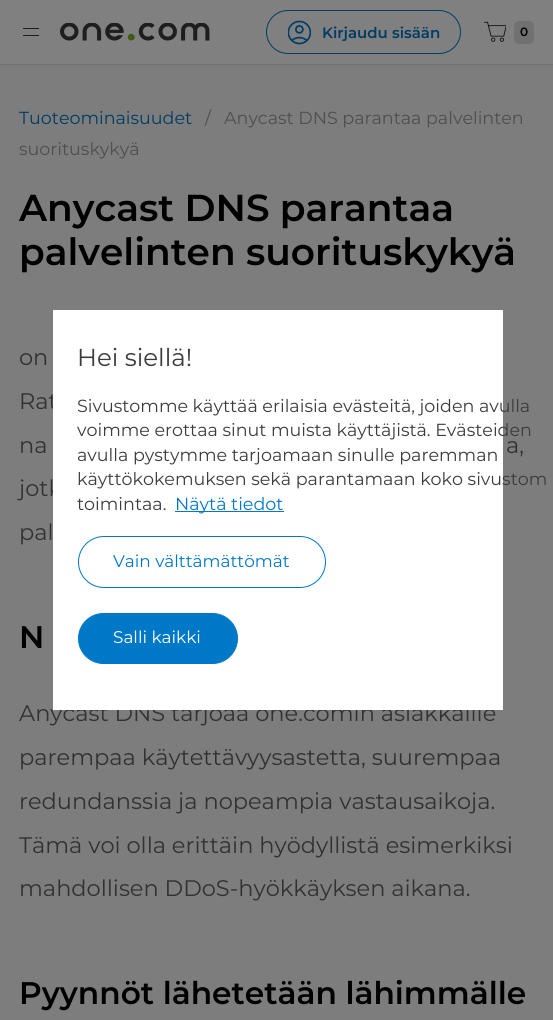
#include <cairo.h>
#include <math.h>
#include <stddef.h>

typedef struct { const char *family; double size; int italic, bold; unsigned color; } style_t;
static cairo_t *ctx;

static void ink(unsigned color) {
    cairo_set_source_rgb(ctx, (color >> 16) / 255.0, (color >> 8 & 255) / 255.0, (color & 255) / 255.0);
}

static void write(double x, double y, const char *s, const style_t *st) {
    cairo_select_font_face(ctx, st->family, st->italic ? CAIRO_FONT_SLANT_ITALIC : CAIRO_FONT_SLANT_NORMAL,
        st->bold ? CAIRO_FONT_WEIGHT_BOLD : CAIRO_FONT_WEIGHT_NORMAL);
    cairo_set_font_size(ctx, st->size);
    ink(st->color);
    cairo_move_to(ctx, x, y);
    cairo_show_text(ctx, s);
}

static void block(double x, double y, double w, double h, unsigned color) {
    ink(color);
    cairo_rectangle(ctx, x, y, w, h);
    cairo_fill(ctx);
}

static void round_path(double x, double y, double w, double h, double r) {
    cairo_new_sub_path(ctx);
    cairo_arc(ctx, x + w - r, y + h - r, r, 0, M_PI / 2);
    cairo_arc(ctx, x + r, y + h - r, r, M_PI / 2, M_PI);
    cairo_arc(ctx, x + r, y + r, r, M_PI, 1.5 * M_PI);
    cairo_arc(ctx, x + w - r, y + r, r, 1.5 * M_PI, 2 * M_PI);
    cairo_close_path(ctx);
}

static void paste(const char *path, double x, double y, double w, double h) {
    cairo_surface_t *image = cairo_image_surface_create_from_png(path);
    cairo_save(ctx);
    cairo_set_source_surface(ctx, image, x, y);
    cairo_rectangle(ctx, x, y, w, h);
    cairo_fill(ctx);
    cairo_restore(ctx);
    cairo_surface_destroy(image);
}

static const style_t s1 = {"Montserrat SemiBold", 15, 0, 0, 0x003c64};
static const style_t s2 = {"Montserrat SemiBold", 12, 0, 0, 0x000000};
static const style_t s3 = {"Montserrat", 17.5, 0, 0, 0x003c64};
static const style_t s4 = {"Montserrat", 17.5, 0, 0, 0x4f4f4f};
static const style_t s5 = {"Montserrat SemiBold", 37.5, 0, 0, 0x000000};
static const style_t s6 = {"Montserrat", 22.5, 0, 0, 0x323232};
static const style_t s7 = {"Montserrat SemiBold", 31.25, 0, 0, 0x000000};
static const style_t s8 = {"Montserrat", 24.5, 0, 0, 0x3c3c3c};
static const style_t s9 = {"Montserrat", 17.5, 0, 0, 0x3c3c3c};
static const style_t s10 = {"Montserrat", 17.5, 0, 0, 0x0078c8};
static const style_t s11 = {"Montserrat", 16.9, 0, 0, 0x0078c8};
static const style_t s12 = {"Montserrat", 16.9, 0, 0, 0xffffff};

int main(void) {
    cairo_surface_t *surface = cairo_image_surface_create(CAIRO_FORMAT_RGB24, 553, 1020);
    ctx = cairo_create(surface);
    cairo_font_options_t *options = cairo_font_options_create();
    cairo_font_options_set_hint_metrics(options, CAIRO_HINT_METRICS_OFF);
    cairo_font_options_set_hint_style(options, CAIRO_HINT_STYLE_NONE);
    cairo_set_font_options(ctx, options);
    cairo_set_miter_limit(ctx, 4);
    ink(0x7d7d7d);
    cairo_paint(ctx);
    block(0, 0, 553, 64, 0x808080);
    block(0, 64, 553, 1, 0x717171);
    block(23, 28, 16, 1, 0x1e1e1e);
    block(23, 35, 16, 1, 0x1e1e1e);
    paste("pic1.png", 60, 23, 150, 18);
    round_path(266.5, 10.5, 194, 43, 21.5);
    ink(0x003c64);
    cairo_set_line_width(ctx, 1);
    cairo_stroke(ctx);
    paste("pic2.png", 288, 20, 23, 25);
    write(322, 38, "Kirjaudu sisään", &s1);
    paste("pic3.png", 484, 21, 22, 21);
    ink(0x717171);
    round_path(514, 21, 20, 23, 5);
    cairo_fill(ctx);
    write(520, 36, "0", &s2);
    write(19, 124, "Tuoteominaisuudet", &s3);
    write(205, 124, "/", &s4);
    write(224, 124, "Anycast DNS parantaa palvelinten", &s4);
    write(19, 155, "suorituskykyä", &s4);
    write(19, 221, "Anycast DNS parantaa", &s5);
    write(19, 265, "palvelinten suorituskykyä", &s5);
    write(19, 365, "on", &s6);
    write(19, 409, "Rat", &s6);
    write(19, 453, "na", &s6);
    write(506, 453, "a,", &s6);
    write(19, 496, "jotk", &s6);
    write(19, 540, "pal", &s6);
    write(19, 648, "N", &s7);
    write(19, 721, "Anycast DNS tarjoaa one.comin asiakkaille", &s6);
    write(19, 765, "parempaa käytettävyysastetta, suurempaa", &s6);
    write(19, 809, "redundanssia ja nopeampia vastausaikoja.", &s6);
    write(19, 853, "Tämä voi olla erittäin hyödyllistä esimerkiksi", &s6);
    write(19, 896, "mahdollisen DDoS-hyökkäyksen aikana.", &s6);
    write(19, 1004, "Pyynnöt lähetetään lähimmälle", &s7);
    block(53, 310, 450, 400, 0xffffff);
    write(77, 366, "Hei siellä!", &s8);
    write(77, 412, "Sivustomme käyttää erilaisia evästeitä, joiden avulla", &s9);
    write(77, 436, "voimme erottaa sinut muista käyttäjistä. Evästeiden", &s9);
    write(77, 461, "avulla pystymme tarjoamaan sinulle paremman", &s9);
    write(77, 485, "käyttökokemuksen sekä parantamaan koko sivustom", &s9);
    write(77, 510, "toimintaa.", &s9);
    block(175, 511, 109, 1, 0x0078c8);
    write(175, 510, "Näytä tiedot", &s10);
    round_path(78.5, 536.5, 247, 51, 25.5);
    cairo_stroke(ctx);
    write(113, 567, "Vain välttämättömät", &s11);
    round_path(78.5, 613.5, 159, 50, 25);
    cairo_fill_preserve(ctx);
    cairo_stroke(ctx);
    write(113, 643, "Salli kaikki", &s12);
    cairo_surface_write_to_png(surface, "screenshot.png");
    cairo_font_options_destroy(options);
    cairo_destroy(ctx);
    cairo_surface_destroy(surface);
    return 0;
}
